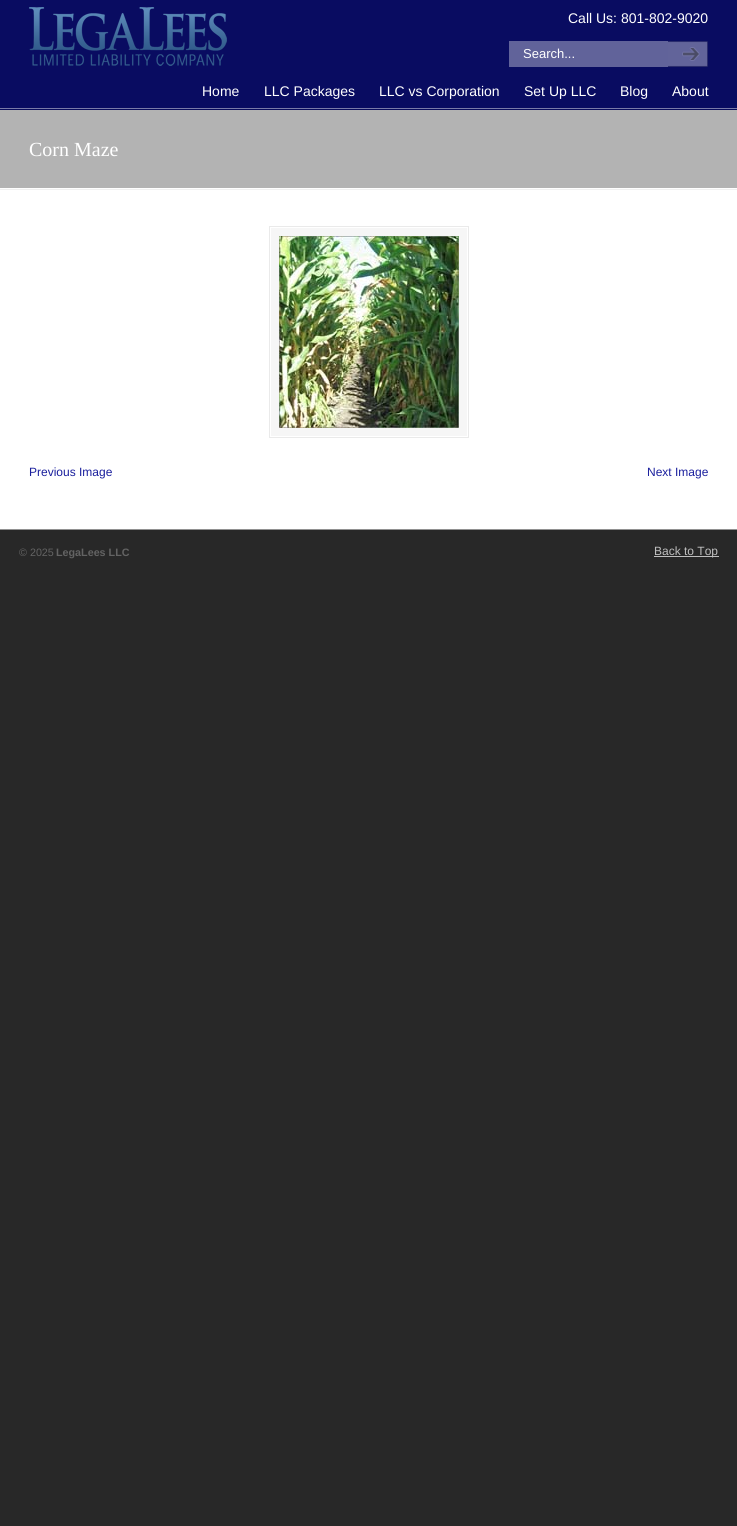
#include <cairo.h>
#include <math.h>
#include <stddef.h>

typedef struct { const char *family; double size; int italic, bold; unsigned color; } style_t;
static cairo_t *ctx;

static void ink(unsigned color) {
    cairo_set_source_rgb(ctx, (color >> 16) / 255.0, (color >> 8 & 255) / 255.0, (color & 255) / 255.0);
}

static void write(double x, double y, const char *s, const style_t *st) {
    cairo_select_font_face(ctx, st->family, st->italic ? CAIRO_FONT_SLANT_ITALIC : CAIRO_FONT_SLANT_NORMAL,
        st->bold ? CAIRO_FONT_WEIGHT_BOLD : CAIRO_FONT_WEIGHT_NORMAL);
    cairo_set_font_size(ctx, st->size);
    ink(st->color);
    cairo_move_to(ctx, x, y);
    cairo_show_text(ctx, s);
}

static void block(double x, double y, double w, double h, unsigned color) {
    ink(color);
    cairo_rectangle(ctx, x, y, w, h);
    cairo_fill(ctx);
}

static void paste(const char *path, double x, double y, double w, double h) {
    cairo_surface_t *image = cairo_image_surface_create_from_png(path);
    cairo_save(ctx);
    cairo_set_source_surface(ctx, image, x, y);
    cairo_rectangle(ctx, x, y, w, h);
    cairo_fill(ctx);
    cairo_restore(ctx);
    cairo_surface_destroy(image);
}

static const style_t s1 = {"Liberation Sans", 14, 0, 0, 0xffffff};
static const style_t s2 = {"Liberation Sans", 13, 0, 0, 0xffffff};
static const style_t s3 = {"Liberation Serif", 20, 0, 0, 0xffffff};
static const style_t s4 = {"Liberation Sans", 12, 0, 0, 0x1a1f9d};
static const style_t s5 = {"Liberation Sans", 10.75, 0, 0, 0x636363};
static const style_t s6 = {"Liberation Sans", 10.75, 0, 1, 0x636363};
static const style_t s7 = {"Liberation Sans", 12, 0, 0, 0xbfbfbf};

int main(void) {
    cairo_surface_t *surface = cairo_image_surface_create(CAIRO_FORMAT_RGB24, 737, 1526);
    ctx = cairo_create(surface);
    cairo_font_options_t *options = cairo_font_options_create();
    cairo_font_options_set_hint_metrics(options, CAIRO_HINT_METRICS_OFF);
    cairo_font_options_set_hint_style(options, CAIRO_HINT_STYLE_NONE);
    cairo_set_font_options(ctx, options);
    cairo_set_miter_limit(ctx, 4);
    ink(0x282828);
    cairo_paint(ctx);
    block(0, 0, 737, 110, 0x090c61);
    paste("pic1.png", 29, 7, 198, 59);
    write(568, 23, "Call Us: 801-802-9020", &s1);
    block(509, 41, 159, 26, 0x61639a);
    write(523, 58, "Search...", &s2);
    paste("pic2.png", 668, 41, 40, 26);
    paste("pic3.png", 0, 108, 737, 2);
    write(202, 96, "Home", &s1);
    write(264, 96, "LLC Packages", &s1);
    write(379, 96, "LLC vs Corporation", &s1);
    write(524, 96, "Set Up LLC", &s1);
    write(620, 96, "Blog", &s1);
    write(672, 96, "About", &s1);
    block(0, 110, 737, 78, 0xb3b3b3);
    write(29, 156, "Corn Maze", &s3);
    block(0, 188, 737, 341, 0xffffff);
    paste("pic4.png", 0, 189, 737, 1);
    block(271, 228, 196, 208, 0xf6f6f6);
    cairo_rectangle(ctx, 269.5, 226.5, 199, 211);
    ink(0xeaeaea);
    cairo_set_line_width(ctx, 1);
    cairo_stroke(ctx);
    paste("pic5.png", 279, 236, 180, 192);
    write(29, 476, "Previous Image", &s4);
    write(647, 476, "Next Image", &s4);
    block(0, 529, 737, 1, 0x919191);
    write(19, 556, "© 2025", &s5);
    write(56, 556, "LegaLees LLC", &s6);
    block(654, 556, 65, 1, 0xbfbfbf);
    write(654, 555, "Back to Top", &s7);
    cairo_surface_write_to_png(surface, "screenshot.png");
    cairo_font_options_destroy(options);
    cairo_destroy(ctx);
    cairo_surface_destroy(surface);
    return 0;
}
